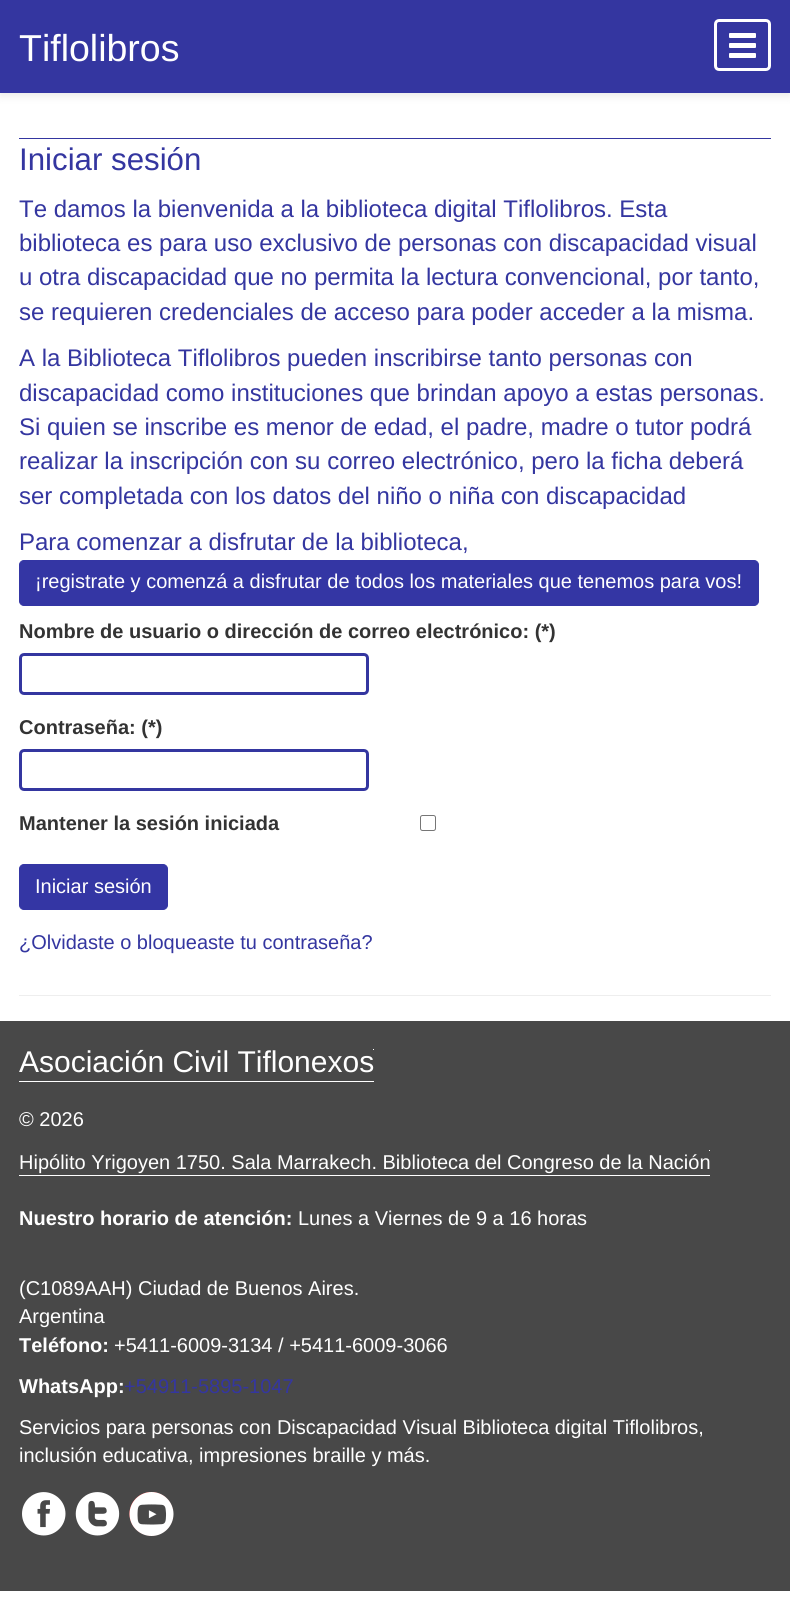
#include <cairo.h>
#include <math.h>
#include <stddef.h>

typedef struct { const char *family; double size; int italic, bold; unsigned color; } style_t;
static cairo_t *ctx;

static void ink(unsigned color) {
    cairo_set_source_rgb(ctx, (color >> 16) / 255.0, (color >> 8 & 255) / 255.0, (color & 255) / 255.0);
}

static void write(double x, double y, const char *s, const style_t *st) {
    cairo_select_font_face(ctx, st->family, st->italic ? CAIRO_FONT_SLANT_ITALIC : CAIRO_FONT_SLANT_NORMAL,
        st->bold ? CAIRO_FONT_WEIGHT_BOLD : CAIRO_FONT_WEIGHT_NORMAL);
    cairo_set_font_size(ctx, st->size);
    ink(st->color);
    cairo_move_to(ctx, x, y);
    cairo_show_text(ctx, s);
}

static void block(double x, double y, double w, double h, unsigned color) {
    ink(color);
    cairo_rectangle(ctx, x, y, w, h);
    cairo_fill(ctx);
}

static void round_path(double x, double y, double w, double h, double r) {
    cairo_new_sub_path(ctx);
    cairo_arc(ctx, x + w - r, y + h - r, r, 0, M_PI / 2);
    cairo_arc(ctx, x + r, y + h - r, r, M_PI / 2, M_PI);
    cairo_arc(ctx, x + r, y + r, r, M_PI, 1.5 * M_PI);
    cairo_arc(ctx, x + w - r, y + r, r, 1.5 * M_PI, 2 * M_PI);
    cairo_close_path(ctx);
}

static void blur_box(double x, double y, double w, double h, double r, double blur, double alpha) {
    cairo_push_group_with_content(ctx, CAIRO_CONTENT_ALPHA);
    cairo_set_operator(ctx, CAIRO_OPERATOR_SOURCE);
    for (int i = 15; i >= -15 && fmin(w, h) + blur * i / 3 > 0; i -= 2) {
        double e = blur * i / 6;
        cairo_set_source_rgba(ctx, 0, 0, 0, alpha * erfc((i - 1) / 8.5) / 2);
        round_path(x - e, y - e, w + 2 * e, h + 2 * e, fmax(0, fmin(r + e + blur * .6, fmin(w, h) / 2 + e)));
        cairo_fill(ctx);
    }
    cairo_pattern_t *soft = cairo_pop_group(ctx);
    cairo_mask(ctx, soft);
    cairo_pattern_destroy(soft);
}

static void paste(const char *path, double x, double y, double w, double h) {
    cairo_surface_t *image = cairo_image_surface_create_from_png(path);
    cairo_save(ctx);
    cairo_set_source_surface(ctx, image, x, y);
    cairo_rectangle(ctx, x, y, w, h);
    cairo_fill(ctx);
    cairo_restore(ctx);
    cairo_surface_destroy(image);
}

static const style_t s1 = {"Liberation Sans", 37.5, 0, 0, 0xffffff};
static const style_t s2 = {"Liberation Sans", 31.25, 0, 0, 0x3436a0};
static const style_t s3 = {"Liberation Sans", 24, 0, 0, 0x3436a0};
static const style_t s4 = {"Liberation Sans", 20, 0, 0, 0xffffff};
static const style_t s5 = {"Liberation Sans", 20, 0, 1, 0x333333};
static const style_t s6 = {"Liberation Sans", 20, 0, 0, 0x3436a0};
static const style_t s7 = {"Liberation Sans", 30, 0, 0, 0xffffff};
static const style_t s8 = {"Liberation Sans", 20, 0, 1, 0xffffff};

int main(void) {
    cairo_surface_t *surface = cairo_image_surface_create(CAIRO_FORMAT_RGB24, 790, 1606);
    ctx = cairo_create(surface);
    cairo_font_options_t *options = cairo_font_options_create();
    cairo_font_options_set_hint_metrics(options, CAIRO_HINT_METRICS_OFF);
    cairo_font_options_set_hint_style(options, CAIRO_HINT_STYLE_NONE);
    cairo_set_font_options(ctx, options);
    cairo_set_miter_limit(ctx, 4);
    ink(0xffffff);
    cairo_paint(ctx);
    ink(0x000000);
    blur_box(0, 4, 790, 92, 0, 4.5, 0.09);
    block(0, 0, 790, 90, 0x3436a0);
    block(0, 90, 790, 3, 0x3436a4);
    write(19, 61, "Tiflolibros", &s1);
    round_path(715.5, 20.5, 54, 49, 3.5);
    cairo_set_line_width(ctx, 3);
    cairo_stroke(ctx);
    round_path(729, 33, 27, 5, 1);
    cairo_fill(ctx);
    round_path(729, 43, 27, 5, 1);
    cairo_fill(ctx);
    round_path(729, 53, 27, 5, 1);
    cairo_fill(ctx);
    block(19, 138, 752, 1, 0x3436a0);
    write(19, 170, "Iniciar sesión", &s2);
    write(19, 217, "Te damos la bienvenida a la biblioteca digital Tiflolibros. Esta", &s3);
    write(19, 251, "biblioteca es para uso exclusivo de personas con discapacidad visual", &s3);
    write(19, 285, "u otra discapacidad que no permita la lectura convencional, por tanto,", &s3);
    write(19, 320, "se requieren credenciales de acceso para poder acceder a la misma.", &s3);
    write(19, 366, "A la Biblioteca Tiflolibros pueden inscribirse tanto personas con", &s3);
    write(19, 401, "discapacidad como instituciones que brindan apoyo a estas personas.", &s3);
    write(19, 435, "Si quien se inscribe es menor de edad, el padre, madre o tutor podrá", &s3);
    write(19, 469, "realizar la inscripción con su correo electrónico, pero la ficha deberá", &s3);
    write(19, 504, "ser completada con los datos del niño o niña con discapacidad", &s3);
    write(19, 550, "Para comenzar a disfrutar de la biblioteca,", &s3);
    ink(0x3436a4);
    round_path(19.5, 560.5, 739, 45, 4.5);
    cairo_fill_preserve(ctx);
    cairo_set_line_width(ctx, 1);
    cairo_stroke(ctx);
    write(35, 588, "¡registrate y comenzá a disfrutar de todos los materiales que tenemos para vos!", &s4);
    write(19, 638, "Nombre de usuario o dirección de correo electrónico: (*)", &s5);
    round_path(20.5, 654.5, 347, 39, 3.5);
    ink(0x3436a0);
    cairo_set_line_width(ctx, 3);
    cairo_stroke(ctx);
    write(19, 734, "Contraseña: (*)", &s5);
    ink(0xececec);
    cairo_new_path(ctx);
    cairo_move_to(ctx, 24, 752);
    cairo_line_to(ctx, 364, 752);
    cairo_curve_to(ctx, 365, 752, 366, 754, 366, 755);
    cairo_line_to(ctx, 366, 752);
    cairo_line_to(ctx, 364, 751);
    cairo_line_to(ctx, 24, 751);
    cairo_curve_to(ctx, 21, 751, 21, 753, 21, 755);
    cairo_curve_to(ctx, 21, 754, 22, 752, 24, 752);
    cairo_close_path(ctx);
    cairo_fill(ctx);
    round_path(20.5, 750.5, 347, 39, 3.5);
    ink(0x3436a0);
    cairo_stroke(ctx);
    write(19, 830, "Mantener la sesión iniciada", &s5);
    round_path(420.5, 815.5, 15, 15, 2);
    ink(0x767676);
    cairo_set_line_width(ctx, 1);
    cairo_stroke(ctx);
    ink(0x3436a4);
    round_path(19.5, 864.5, 148, 45, 4.5);
    cairo_fill_preserve(ctx);
    cairo_stroke(ctx);
    write(35, 893, "Iniciar sesión", &s4);
    write(19, 949, "¿Olvidaste o bloqueaste tu contraseña?", &s6);
    block(19, 995, 752, 1, 0xeeeeee);
    block(0, 1021, 790, 570, 0x484848);
    write(19, 1072, "Asociación Civil Tiflonexos", &s7);
    block(19, 1081, 355, 1, 0xffffff);
    block(373, 1049, 1, 1, 0xffffff);
    write(19, 1126, "© 2026", &s4);
    write(19, 1169, "Hipólito Yrigoyen 1750. Sala Marrakech. Biblioteca del Congreso de la Nación", &s4);
    block(19, 1175, 691, 1, 0xffffff);
    block(709, 1150, 1, 1, 0xffffff);
    write(19, 1225, "Nuestro horario de atención:", &s8);
    write(298, 1225, "Lunes a Viernes de 9 a 16 horas", &s4);
    write(19, 1295, "(C1089AAH) Ciudad de Buenos Aires.", &s4);
    write(19, 1323, "Argentina", &s4);
    write(19, 1352, "Teléfono:", &s8);
    write(114, 1352, "+5411-6009-3134 / +5411-6009-3066", &s4);
    write(19, 1393, "WhatsApp:", &s8);
    write(124, 1393, "+54911-5895-1047", &s6);
    write(19, 1434, "Servicios para personas con Discapacidad Visual Biblioteca digital Tiflolibros,", &s4);
    write(19, 1462, "inclusión educativa, impresiones braille y más.", &s4);
    paste("pic1.png", 22, 1492, 44, 44);
    paste("pic2.png", 75, 1492, 45, 44);
    paste("pic3.png", 129, 1492, 45, 44);
    cairo_surface_write_to_png(surface, "screenshot.png");
    cairo_font_options_destroy(options);
    cairo_destroy(ctx);
    cairo_surface_destroy(surface);
    return 0;
}
